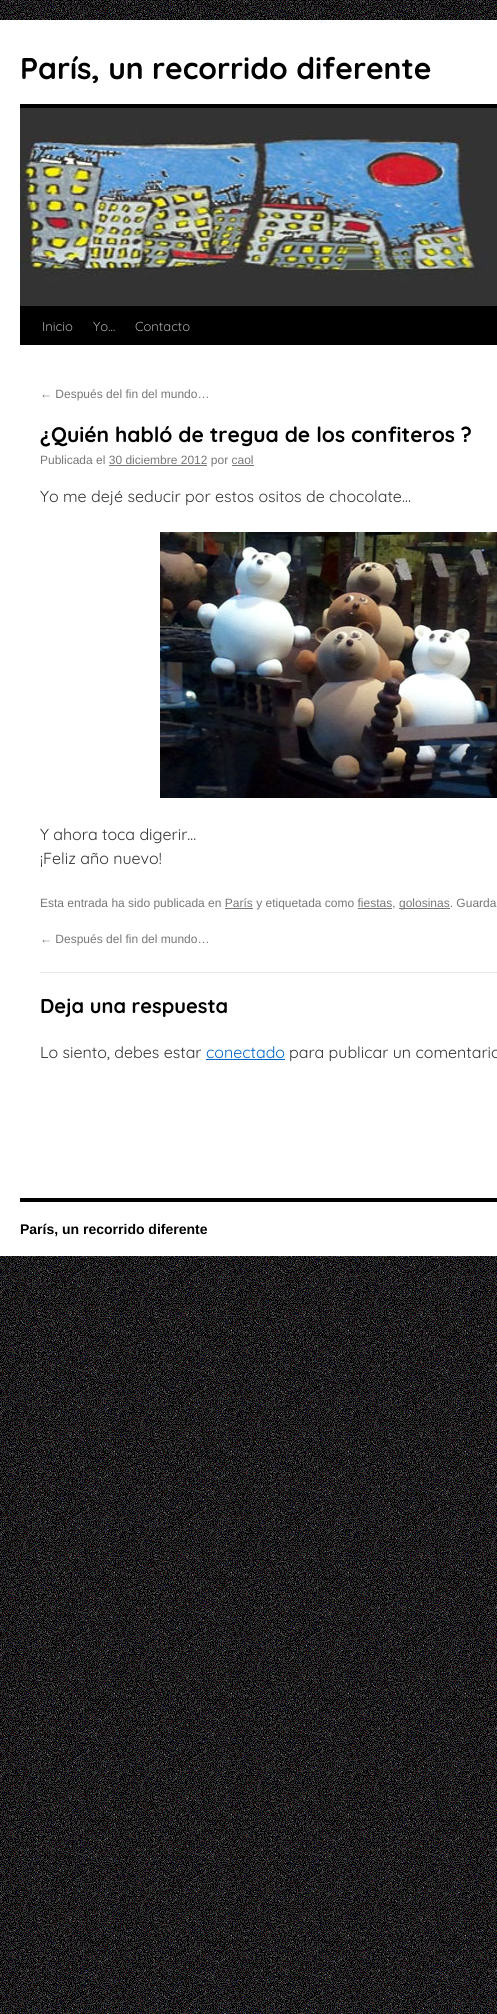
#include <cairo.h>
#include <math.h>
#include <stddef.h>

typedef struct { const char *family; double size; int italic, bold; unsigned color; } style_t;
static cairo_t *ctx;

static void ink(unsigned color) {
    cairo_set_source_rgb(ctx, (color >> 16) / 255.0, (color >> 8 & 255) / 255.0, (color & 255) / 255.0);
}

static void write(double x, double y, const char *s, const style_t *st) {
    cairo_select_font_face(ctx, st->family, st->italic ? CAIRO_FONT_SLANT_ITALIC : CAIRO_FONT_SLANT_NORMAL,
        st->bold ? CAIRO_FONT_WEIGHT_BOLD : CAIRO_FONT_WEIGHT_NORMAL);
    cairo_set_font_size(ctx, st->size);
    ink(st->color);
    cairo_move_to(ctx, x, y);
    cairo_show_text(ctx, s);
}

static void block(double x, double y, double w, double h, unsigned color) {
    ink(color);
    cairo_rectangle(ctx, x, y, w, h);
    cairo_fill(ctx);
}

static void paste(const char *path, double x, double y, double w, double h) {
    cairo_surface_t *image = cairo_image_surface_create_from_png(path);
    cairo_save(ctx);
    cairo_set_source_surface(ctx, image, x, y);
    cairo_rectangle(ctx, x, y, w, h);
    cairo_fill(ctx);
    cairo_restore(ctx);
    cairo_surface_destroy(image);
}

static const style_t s1 = {"Quicksand", 30, 0, 1, 0x000000};
static const style_t s2 = {"Quicksand", 13, 0, 0, 0xaaaaaa};
static const style_t s3 = {"Liberation Sans", 12, 0, 0, 0x777777};
static const style_t s4 = {"Quicksand", 21, 0, 1, 0x000000};
static const style_t s5 = {"Quicksand", 16, 0, 0, 0x333333};
static const style_t s6 = {"Quicksand", 20, 0, 1, 0x000000};
static const style_t s7 = {"Quicksand", 16, 0, 0, 0x0066cc};
static const style_t s8 = {"Liberation Sans", 14, 0, 1, 0x000000};

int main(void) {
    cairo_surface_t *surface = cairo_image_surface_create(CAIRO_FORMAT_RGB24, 497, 2014);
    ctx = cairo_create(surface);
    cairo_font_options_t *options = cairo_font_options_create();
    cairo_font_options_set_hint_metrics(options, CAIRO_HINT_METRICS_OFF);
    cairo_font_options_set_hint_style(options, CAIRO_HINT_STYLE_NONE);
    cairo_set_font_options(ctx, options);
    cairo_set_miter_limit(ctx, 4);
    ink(0xffffff);
    cairo_paint(ctx);
    paste("pic1.png", 0, 0, 497, 2014);
    block(0, 20, 497, 1236, 0xffffff);
    write(20, 79, "París, un recorrido diferente", &s1);
    block(20, 104, 477, 4, 0x000000);
    block(20, 306, 477, 39, 0x000000);
    paste("pic2.png", 20, 108, 477, 198);
    write(42, 331, "Inicio", &s2);
    write(93, 331, "Yo…", &s2);
    write(135, 331, "Contacto", &s2);
    write(40, 398, "← Después del fin del mundo…", &s3);
    write(40, 442, "¿Quién habló de tregua de los confiteros ?", &s4);
    write(40, 464, "Publicada el 30 diciembre 2012 por caol", &s3);
    block(109, 465, 98, 1, 0x777777);
    block(232, 465, 22, 1, 0x777777);
    write(40, 502, "Yo me dejé seducir por estos ositos de chocolate…", &s5);
    paste("pic3.png", 160, 532, 337, 266);
    write(40, 840, "Y ahora toca digerir…", &s5);
    write(40, 864, "¡Feliz año nuevo!", &s5);
    write(40, 907, "Esta entrada ha sido publicada en París y etiquetada como fiestas,", &s3);
    block(399, 908, 51, 1, 0x777777);
    write(399, 907, "golosinas. Guarda", &s3);
    block(225, 908, 28, 1, 0x777777);
    block(358, 908, 34, 1, 0x777777);
    write(40, 943, "← Después del fin del mundo…", &s3);
    block(40, 972, 457, 1, 0xe7e7e7);
    write(40, 1013, "Deja una respuesta", &s6);
    write(40, 1058, "Lo siento, debes estar", &s5);
    write(206, 1058, "conectado", &s7);
    block(206, 1059, 79, 1, 0x0066cc);
    write(289, 1058, "para publicar un comentario", &s5);
    block(20, 1198, 477, 4, 0x000000);
    write(20, 1234, "París, un recorrido diferente", &s8);
    cairo_surface_write_to_png(surface, "screenshot.png");
    cairo_font_options_destroy(options);
    cairo_destroy(ctx);
    cairo_surface_destroy(surface);
    return 0;
}
